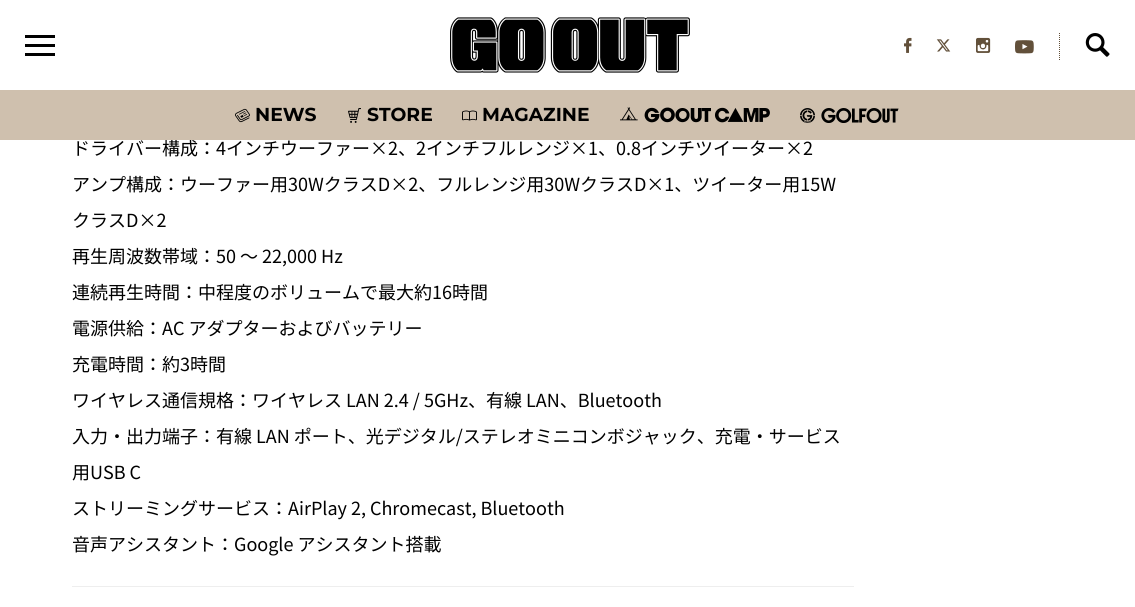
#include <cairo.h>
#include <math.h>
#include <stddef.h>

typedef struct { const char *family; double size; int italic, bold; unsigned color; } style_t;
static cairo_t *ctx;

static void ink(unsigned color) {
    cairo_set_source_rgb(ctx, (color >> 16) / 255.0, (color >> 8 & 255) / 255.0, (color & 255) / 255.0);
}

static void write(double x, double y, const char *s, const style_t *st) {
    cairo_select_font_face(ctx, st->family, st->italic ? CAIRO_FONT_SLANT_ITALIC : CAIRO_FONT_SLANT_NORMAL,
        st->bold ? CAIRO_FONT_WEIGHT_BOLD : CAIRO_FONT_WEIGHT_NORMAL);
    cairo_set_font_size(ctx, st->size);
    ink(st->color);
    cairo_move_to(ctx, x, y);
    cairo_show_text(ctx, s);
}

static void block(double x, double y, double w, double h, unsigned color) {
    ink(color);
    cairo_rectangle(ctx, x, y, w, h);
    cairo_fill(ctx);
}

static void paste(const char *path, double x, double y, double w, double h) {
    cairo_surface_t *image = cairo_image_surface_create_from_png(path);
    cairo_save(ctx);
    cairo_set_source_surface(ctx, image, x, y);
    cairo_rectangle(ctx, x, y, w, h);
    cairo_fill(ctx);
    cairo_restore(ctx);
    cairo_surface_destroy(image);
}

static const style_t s1 = {"Noto Sans JP", 18, 0, 0, 0x000000};
static const style_t s2 = {"Montserrat", 18.75, 0, 1, 0x000000};

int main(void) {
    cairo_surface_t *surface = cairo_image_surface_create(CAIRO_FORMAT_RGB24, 1135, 607);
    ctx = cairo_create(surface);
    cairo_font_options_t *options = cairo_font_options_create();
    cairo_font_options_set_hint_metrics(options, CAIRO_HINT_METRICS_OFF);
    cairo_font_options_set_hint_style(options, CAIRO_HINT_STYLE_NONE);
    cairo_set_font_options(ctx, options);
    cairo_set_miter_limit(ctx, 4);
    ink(0xffffff);
    cairo_paint(ctx);
    block(25, 35, 30, 3, 0x000000);
    block(25, 44, 30, 3, 0x000000);
    block(25, 53, 30, 3, 0x000000);
    paste("pic1.png", 450, 17, 240, 56);
    cairo_new_path(ctx);
    cairo_move_to(ctx, 1059.5, 33);
    cairo_line_to(ctx, 1059.5, 61);
    ink(0x62503a);
    cairo_set_line_width(ctx, 1);
    cairo_set_dash(ctx, (double[]){1, 1}, 2, 0);
    cairo_stroke(ctx);
    paste("pic2.png", 904, 37, 8, 16);
    paste("pic3.png", 936, 39, 15, 13);
    paste("pic4.png", 976, 37, 15, 16);
    paste("pic5.png", 1015, 40, 19, 14);
    paste("pic6.png", 1085, 33, 25, 24);
    write(72, 155, "ドライバー構成：4インチウーファー×2、2インチフルレンジ×1、0.8インチツイーター×2", &s1);
    block(0, 90, 1135, 50, 0xcfc0ae);
    paste("pic7.png", 235, 108, 15, 15);
    write(255, 121, "NEWS", &s2);
    paste("pic8.png", 348, 108, 13, 15);
    write(367, 121, "STORE", &s2);
    paste("pic9.png", 462, 110, 15, 11);
    write(482, 121, "MAGAZINE", &s2);
    paste("pic10.png", 620, 107, 150, 16);
    paste("pic11.png", 800, 108, 15, 15);
    paste("pic12.png", 821, 108, 78, 15);
    write(72, 191, "アンプ構成：ウーファー用30WクラスD×2、フルレンジ用30WクラスD×1、ツイーター用15W", &s1);
    write(72, 227, "クラスD×2", &s1);
    write(72, 263, "再生周波数帯域：50 ～ 22,000 Hz", &s1);
    write(72, 299, "連続再生時間：中程度のボリュームで最大約16時間", &s1);
    write(72, 335, "電源供給：AC アダプターおよびバッテリー", &s1);
    write(72, 371, "充電時間：約3時間", &s1);
    write(72, 407, "ワイヤレス通信規格：ワイヤレス LAN 2.4 / 5GHz、有線 LAN、Bluetooth", &s1);
    write(72, 443, "入力・出力端子：有線 LAN ポート、光デジタル/ステレオミニコンボジャック、充電・サービス", &s1);
    write(72, 479, "用USB C", &s1);
    write(72, 515, "ストリーミングサービス：AirPlay 2, Chromecast, Bluetooth", &s1);
    write(72, 551, "音声アシスタント：Google アシスタント搭載", &s1);
    block(72, 586, 782, 1, 0xeeeeee);
    cairo_surface_write_to_png(surface, "screenshot.png");
    cairo_font_options_destroy(options);
    cairo_destroy(ctx);
    cairo_surface_destroy(surface);
    return 0;
}
